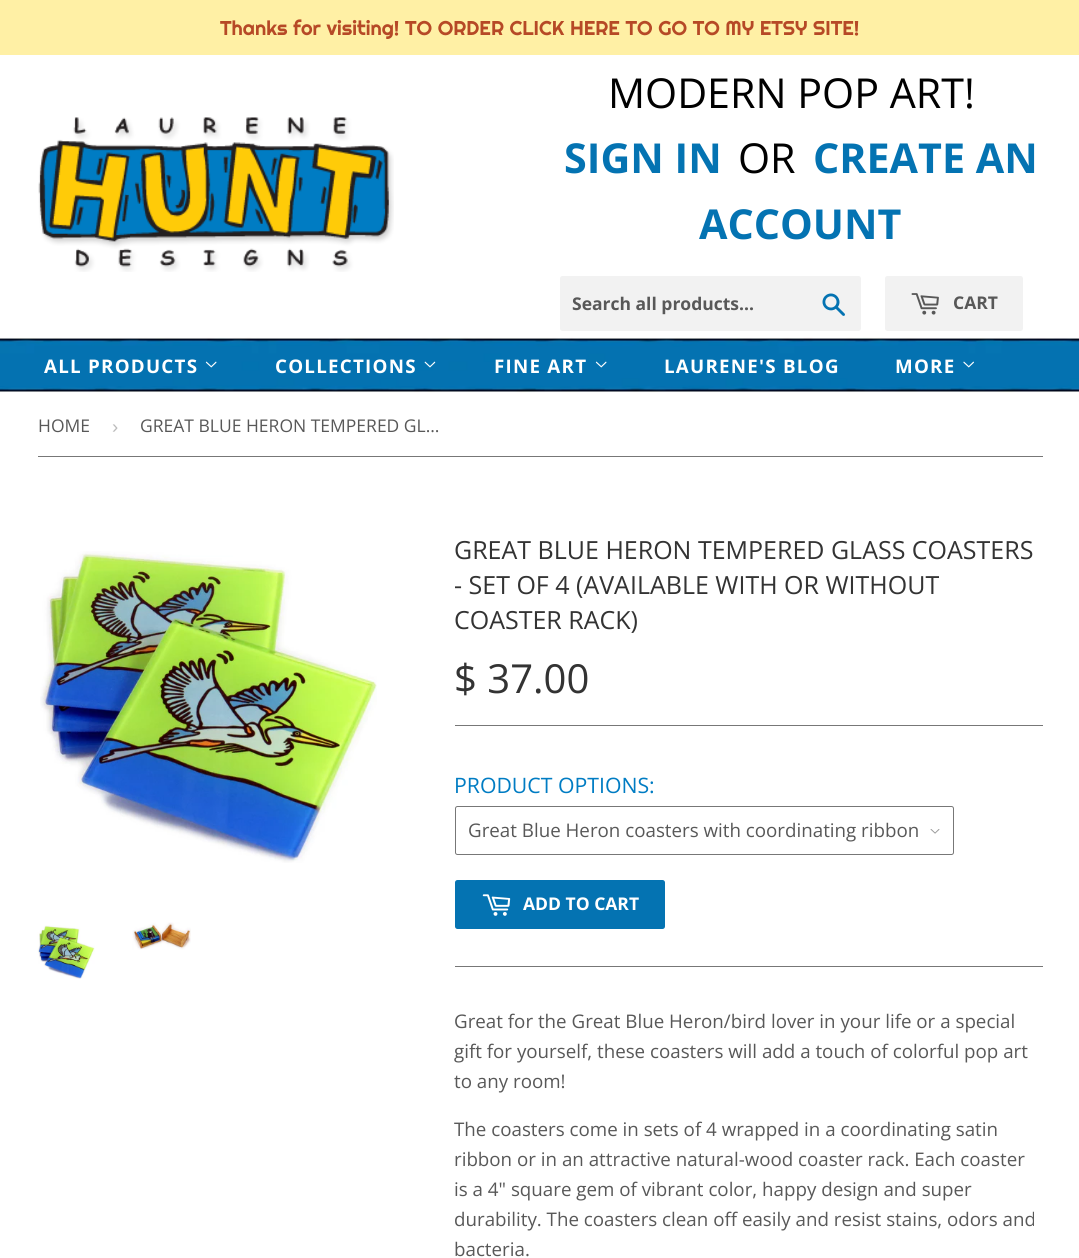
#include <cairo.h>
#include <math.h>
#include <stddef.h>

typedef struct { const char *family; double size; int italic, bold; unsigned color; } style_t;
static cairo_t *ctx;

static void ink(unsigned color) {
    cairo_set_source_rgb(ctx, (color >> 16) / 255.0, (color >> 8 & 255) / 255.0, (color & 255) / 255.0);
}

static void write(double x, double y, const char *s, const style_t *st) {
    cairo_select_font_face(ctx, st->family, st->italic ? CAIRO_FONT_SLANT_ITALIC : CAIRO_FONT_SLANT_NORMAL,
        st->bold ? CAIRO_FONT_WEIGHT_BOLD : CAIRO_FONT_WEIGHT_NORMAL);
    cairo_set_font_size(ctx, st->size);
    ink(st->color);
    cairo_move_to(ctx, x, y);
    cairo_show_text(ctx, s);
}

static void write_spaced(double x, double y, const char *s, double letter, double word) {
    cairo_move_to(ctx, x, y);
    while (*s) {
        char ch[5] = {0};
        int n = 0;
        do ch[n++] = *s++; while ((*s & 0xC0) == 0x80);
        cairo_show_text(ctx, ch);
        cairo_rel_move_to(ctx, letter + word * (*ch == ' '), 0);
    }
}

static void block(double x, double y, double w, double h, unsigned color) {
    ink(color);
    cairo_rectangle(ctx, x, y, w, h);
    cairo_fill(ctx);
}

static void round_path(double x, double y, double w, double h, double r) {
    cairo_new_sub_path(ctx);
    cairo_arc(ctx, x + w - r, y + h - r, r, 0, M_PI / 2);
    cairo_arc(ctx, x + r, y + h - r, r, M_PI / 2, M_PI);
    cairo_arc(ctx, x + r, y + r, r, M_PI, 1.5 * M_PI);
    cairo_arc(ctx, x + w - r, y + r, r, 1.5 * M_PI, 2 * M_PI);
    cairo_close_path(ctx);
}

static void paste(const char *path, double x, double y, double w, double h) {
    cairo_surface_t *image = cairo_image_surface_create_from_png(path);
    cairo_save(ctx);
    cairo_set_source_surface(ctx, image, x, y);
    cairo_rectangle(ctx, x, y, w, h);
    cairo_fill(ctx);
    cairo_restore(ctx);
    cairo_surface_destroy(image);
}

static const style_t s1 = {"Righteous", 20, 0, 0, 0xb64926};
static const style_t s2 = {"Open Sans", 41.25, 0, 0, 0x000000};
static const style_t s3 = {"Open Sans", 41.25, 0, 1, 0x0473b2};
static const style_t s4 = {"Open Sans", 17.5, 0, 1, 0x585858};
static const style_t s5 = {"Open Sans", 17.5, 0, 0, 0x585858};
static const style_t s6 = {"Liberation Sans", 18.75, 0, 0, 0xbbbbbb};
static const style_t s7 = {"Open Sans", 25, 0, 0, 0x333333};
static const style_t s8 = {"Open Sans", 40, 0, 0, 0x333333};
static const style_t s9 = {"Open Sans", 21.25, 0, 0, 0x007cc3};
static const style_t s10 = {"Open Sans", 18.75, 0, 0, 0x585858};
static const style_t s11 = {"Open Sans", 17.5, 0, 1, 0xffffff};

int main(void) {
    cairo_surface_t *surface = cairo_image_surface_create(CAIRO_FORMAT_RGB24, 1079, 1258);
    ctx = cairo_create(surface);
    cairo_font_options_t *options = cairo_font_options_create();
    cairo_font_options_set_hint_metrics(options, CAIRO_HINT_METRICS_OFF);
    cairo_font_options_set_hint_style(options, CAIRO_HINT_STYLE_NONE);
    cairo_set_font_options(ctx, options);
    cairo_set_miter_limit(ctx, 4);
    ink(0xffffff);
    cairo_paint(ctx);
    block(0, 0, 1079, 55, 0xfff0a5);
    write(220, 35, "Thanks for visiting! TO ORDER CLICK HERE TO GO TO MY ETSY SITE!", &s1);
    paste("pic1.png", 38, 117, 356, 155);
    write(608, 108, "MODERN POP ART!", &s2);
    write(564, 173, "SIGN IN", &s3);
    write(738, 173, "OR", &s2);
    write(813, 173, "CREATE AN", &s3);
    write(699, 239, "ACCOUNT", &s3);
    ink(0xf2f2f2);
    round_path(560, 276, 301, 55, 2.5);
    cairo_fill(ctx);
    write(572, 310, "Search all products...", &s4);
    paste("pic2.png", 822, 293, 23, 23);
    ink(0xf2f2f2);
    round_path(885, 276, 138, 55, 2.5);
    cairo_fill(ctx);
    paste("pic3.png", 911, 293, 28, 22);
    write(953, 309, "CART", &s4);
    paste("pic4.png", 0, 337, 1079, 56);
    cairo_set_font_size(ctx, 18.75);
    ink(0xffffff);
    write_spaced(44, 373, "ALL PRODUCTS", 1.25, 0);
    paste("pic5.png", 205, 361, 12, 7);
    write_spaced(275, 373, "COLLECTIONS", 1.25, 0);
    paste("pic6.png", 424, 361, 12, 7);
    write_spaced(494, 373, "FINE ART", 1.25, 0);
    paste("pic7.png", 595, 361, 12, 7);
    write_spaced(664, 373, "LAURENE'S BLOG", 1.25, 0);
    write_spaced(895, 373, "MORE", 1.25, 0);
    paste("pic8.png", 963, 361, 11, 7);
    block(38, 456, 1005, 1, 0x777777);
    write(38, 432, "HOME", &s5);
    write(112, 433, "›", &s6);
    write(140, 432, "GREAT BLUE HERON TEMPERED GL…", &s5);
    paste("pic9.png", 40, 551, 337, 312);
    paste("pic10.png", 37, 925, 58, 54);
    paste("pic11.png", 132, 922, 59, 28);
    write(454, 559, "GREAT BLUE HERON TEMPERED GLASS COASTERS", &s7);
    write(454, 594, "- SET OF 4 (AVAILABLE WITH OR WITHOUT", &s7);
    write(454, 629, "COASTER RACK)", &s7);
    write(454, 693, "$ 37.00", &s8);
    block(455, 725, 588, 1, 0x777777);
    write(454, 793, "PRODUCT OPTIONS:", &s9);
    paste("pic12.png", 930, 829, 10, 5);
    round_path(455.5, 806.5, 498, 48, 2);
    ink(0x777777);
    cairo_set_line_width(ctx, 1);
    cairo_stroke(ctx);
    write(468, 837, "Great Blue Heron coasters with coordinating ribbon", &s10);
    ink(0x0473b2);
    round_path(455, 880, 210, 49, 2.5);
    cairo_fill(ctx);
    paste("pic13.png", 482, 894, 29, 22);
    write(523, 910, "ADD TO CART", &s11);
    block(455, 966, 588, 1, 0x777777);
    write(454, 1028, "Great for the Great Blue Heron/bird lover in your life or a special", &s10);
    write(454, 1058, "gift for yourself, these coasters will add a touch of colorful pop art", &s10);
    write(454, 1088, "to any room!", &s10);
    write(454, 1136, "The coasters come in sets of 4 wrapped in a coordinating satin", &s10);
    write(454, 1166, "ribbon or in an attractive natural-wood coaster rack. Each coaster", &s10);
    write(454, 1196, "is a 4\" square gem of vibrant color, happy design and super", &s10);
    write(454, 1226, "durability. The coasters clean off easily and resist stains, odors and", &s10);
    write(454, 1256, "bacteria.", &s10);
    cairo_surface_write_to_png(surface, "screenshot.png");
    cairo_font_options_destroy(options);
    cairo_destroy(ctx);
    cairo_surface_destroy(surface);
    return 0;
}
